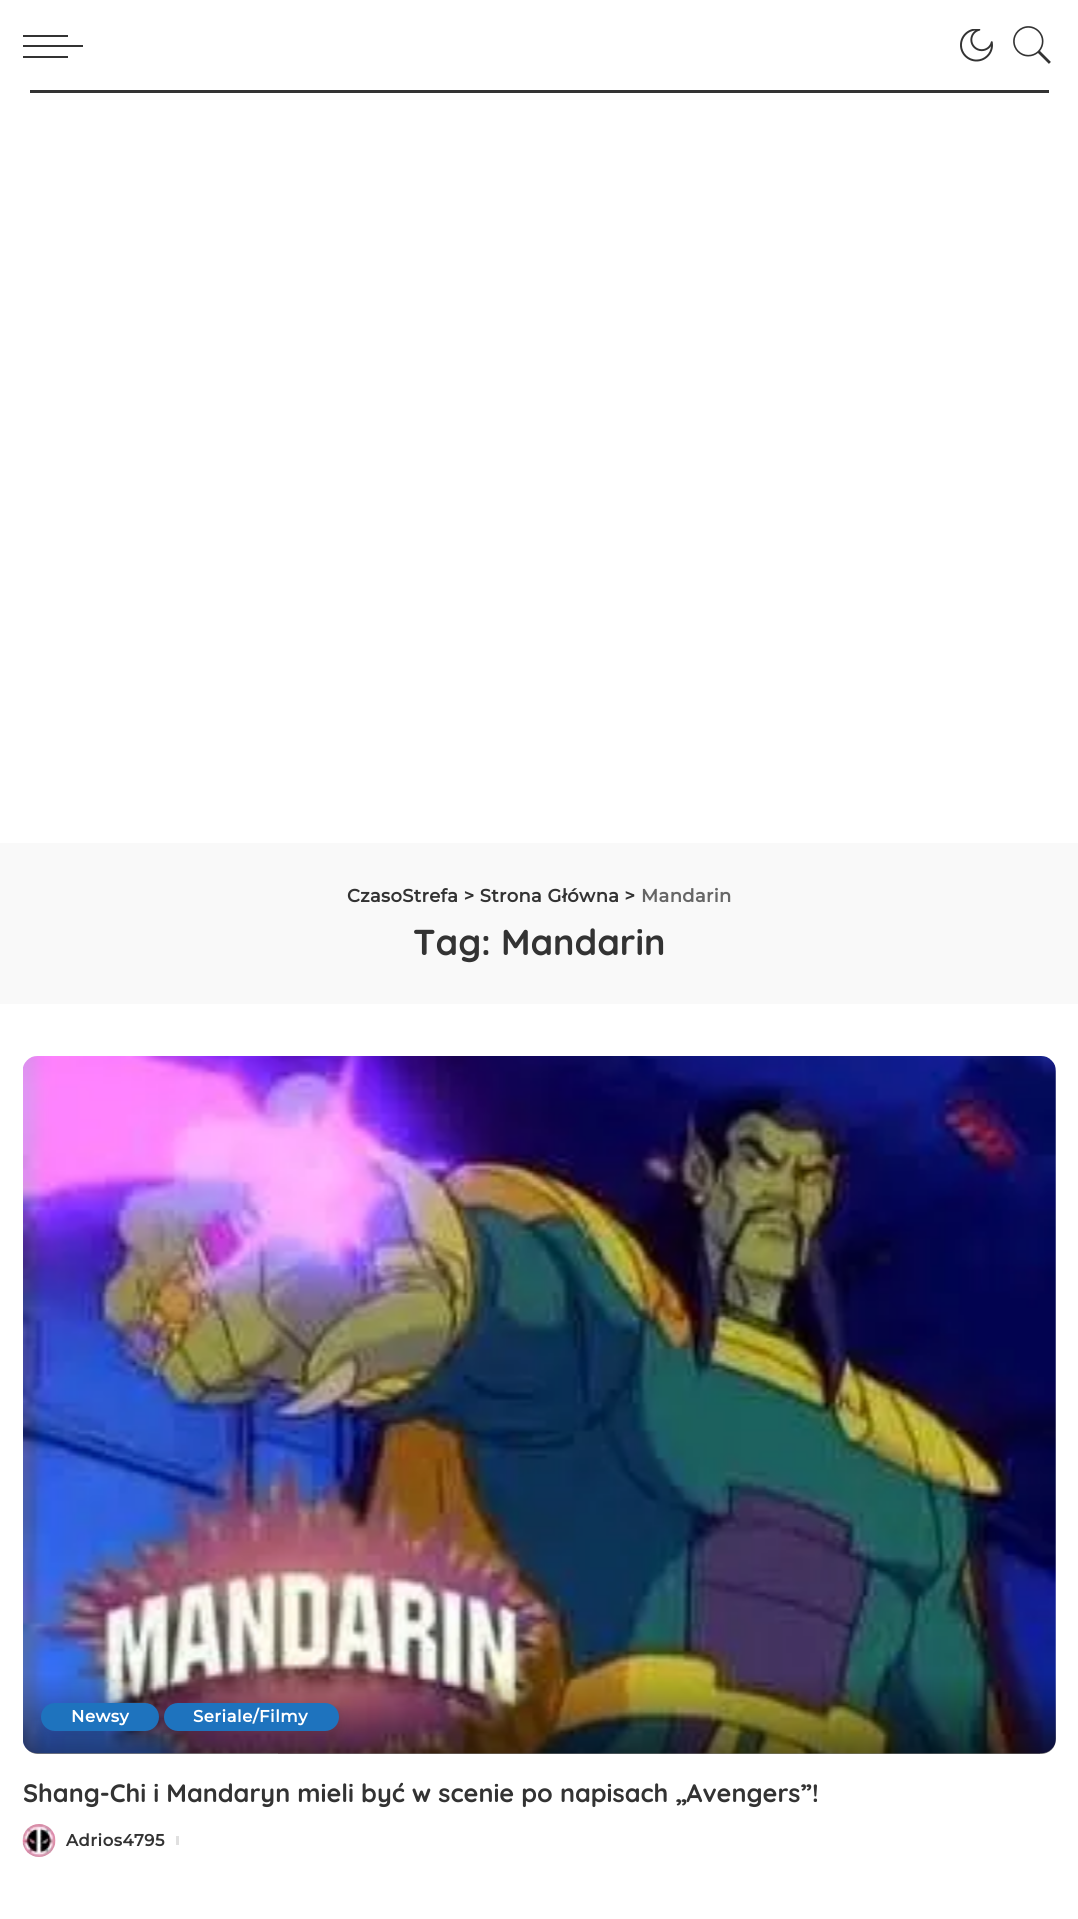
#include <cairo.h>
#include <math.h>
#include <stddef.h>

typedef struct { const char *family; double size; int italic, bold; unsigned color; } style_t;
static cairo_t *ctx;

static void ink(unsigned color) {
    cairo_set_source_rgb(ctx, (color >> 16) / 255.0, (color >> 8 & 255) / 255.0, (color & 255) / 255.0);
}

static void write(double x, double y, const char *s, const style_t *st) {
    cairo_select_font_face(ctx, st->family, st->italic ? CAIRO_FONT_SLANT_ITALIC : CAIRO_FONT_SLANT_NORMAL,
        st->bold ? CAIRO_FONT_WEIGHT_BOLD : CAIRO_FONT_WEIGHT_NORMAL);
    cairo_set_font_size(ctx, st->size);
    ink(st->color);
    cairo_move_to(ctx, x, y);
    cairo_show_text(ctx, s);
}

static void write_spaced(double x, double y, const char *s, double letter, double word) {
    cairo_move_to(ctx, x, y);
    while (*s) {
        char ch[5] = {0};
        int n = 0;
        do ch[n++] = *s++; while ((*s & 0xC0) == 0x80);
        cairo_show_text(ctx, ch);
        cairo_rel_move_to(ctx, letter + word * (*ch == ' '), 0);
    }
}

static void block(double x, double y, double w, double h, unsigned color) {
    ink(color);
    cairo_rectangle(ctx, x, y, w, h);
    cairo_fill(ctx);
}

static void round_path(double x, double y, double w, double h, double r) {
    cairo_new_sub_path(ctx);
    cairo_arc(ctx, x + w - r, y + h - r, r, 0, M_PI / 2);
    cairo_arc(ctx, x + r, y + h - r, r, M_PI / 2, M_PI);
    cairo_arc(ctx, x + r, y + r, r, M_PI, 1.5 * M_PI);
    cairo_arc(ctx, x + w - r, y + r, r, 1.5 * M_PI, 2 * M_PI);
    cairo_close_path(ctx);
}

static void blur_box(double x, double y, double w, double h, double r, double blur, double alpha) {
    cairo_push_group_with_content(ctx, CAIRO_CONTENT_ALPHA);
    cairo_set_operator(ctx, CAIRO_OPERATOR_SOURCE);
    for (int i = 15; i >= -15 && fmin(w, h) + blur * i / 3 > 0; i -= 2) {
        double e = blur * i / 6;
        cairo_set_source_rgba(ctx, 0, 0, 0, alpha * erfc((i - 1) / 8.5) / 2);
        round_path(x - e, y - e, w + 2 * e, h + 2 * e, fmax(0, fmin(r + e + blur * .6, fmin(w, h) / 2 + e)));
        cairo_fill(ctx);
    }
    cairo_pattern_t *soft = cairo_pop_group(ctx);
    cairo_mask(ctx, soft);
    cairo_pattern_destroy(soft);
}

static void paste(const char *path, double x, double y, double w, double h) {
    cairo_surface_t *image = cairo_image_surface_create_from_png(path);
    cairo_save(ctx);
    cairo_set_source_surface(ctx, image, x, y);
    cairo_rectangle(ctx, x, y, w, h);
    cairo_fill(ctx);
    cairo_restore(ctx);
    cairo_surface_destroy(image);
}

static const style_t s1 = {"Quicksand", 36, 0, 1, 0x333333};
static const style_t s2 = {"Quicksand", 25.2, 0, 1, 0x333333};

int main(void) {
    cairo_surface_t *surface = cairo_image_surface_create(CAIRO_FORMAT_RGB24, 1078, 1919);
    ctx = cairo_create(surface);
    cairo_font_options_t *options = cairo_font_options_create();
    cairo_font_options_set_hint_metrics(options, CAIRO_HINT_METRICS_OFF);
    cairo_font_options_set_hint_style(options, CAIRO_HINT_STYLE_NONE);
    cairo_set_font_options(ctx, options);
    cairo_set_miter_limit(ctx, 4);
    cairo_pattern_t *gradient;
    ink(0xffffff);
    cairo_paint(ctx);
    block(23, 45, 60, 2, 0x333333);
    block(23, 35, 45, 2, 0x333333);
    block(23, 56, 45, 2, 0x333333);
    paste("pic1.png", 960, 29, 33, 33);
    paste("pic2.png", 1013, 26, 38, 38);
    block(30, 90, 1019, 3, 0x333333);
    block(0, 843, 1078, 161, 0xf9f9f9);
    cairo_select_font_face(ctx, "Montserrat", CAIRO_FONT_SLANT_NORMAL, CAIRO_FONT_WEIGHT_BOLD);
    cairo_set_font_size(ctx, 18);
    ink(0x333333);
    write_spaced(347, 902, "CzasoStrefa > Strona Główna >", 0.35, 0);
    ink(0x666666);
    write_spaced(641, 902, "Mandarin", 0.35, 0);
    write(413, 955, "Tag: Mandarin", &s1);
    paste("pic3.png", 23, 1056, 1033, 698);
    gradient = cairo_pattern_create_linear(539, 1673, 539, 1754);
    cairo_pattern_add_color_stop_rgba(gradient, 0, 0, 0, 0, 0);
    cairo_pattern_add_color_stop_rgba(gradient, 1, 0, 0, 0, 0.5);
    cairo_set_source(ctx, gradient);
    cairo_pattern_destroy(gradient);
    cairo_new_path(ctx);
    cairo_move_to(ctx, 23, 1673);
    cairo_line_to(ctx, 1056, 1673);
    cairo_line_to(ctx, 1056, 1739);
    cairo_curve_to(ctx, 1056, 1747.5, 1049.5, 1754, 1041, 1754);
    cairo_line_to(ctx, 38, 1754);
    cairo_curve_to(ctx, 29.5, 1754, 23, 1747.5, 23, 1739);
    cairo_close_path(ctx);
    cairo_fill(ctx);
    ink(0x000000);
    blur_box(42, 1710, 119, 29, 14.5, 7.5, 0.1);
    ink(0x1e73be);
    round_path(41, 1703, 118, 28, 14);
    cairo_fill(ctx);
    cairo_select_font_face(ctx, "Montserrat", CAIRO_FONT_SLANT_NORMAL, CAIRO_FONT_WEIGHT_BOLD);
    cairo_set_font_size(ctx, 16.5);
    ink(0xffffff);
    write_spaced(71, 1722, "Newsy", 0.5, 0);
    ink(0x000000);
    blur_box(165, 1710, 176, 29, 14.5, 7.5, 0.1);
    ink(0x1e73be);
    round_path(164, 1703, 175, 28, 14);
    cairo_fill(ctx);
    ink(0xffffff);
    write_spaced(193, 1722, "Seriale/Filmy", 0.5, 0);
    write(23, 1802, "Shang-Chi i Mandaryn mieli być w scenie po napisach „Avengers”!", &s2);
    paste("pic4.png", 22, 1824, 34, 33);
    cairo_select_font_face(ctx, "Montserrat", CAIRO_FONT_SLANT_NORMAL, CAIRO_FONT_WEIGHT_BOLD);
    cairo_set_font_size(ctx, 16.5);
    write_spaced(66, 1846, "Adrios4795", 0.5, 0);
    block(176, 1836, 3, 9, 0xe0e0e0);
    cairo_surface_write_to_png(surface, "screenshot.png");
    cairo_font_options_destroy(options);
    cairo_destroy(ctx);
    cairo_surface_destroy(surface);
    return 0;
}
